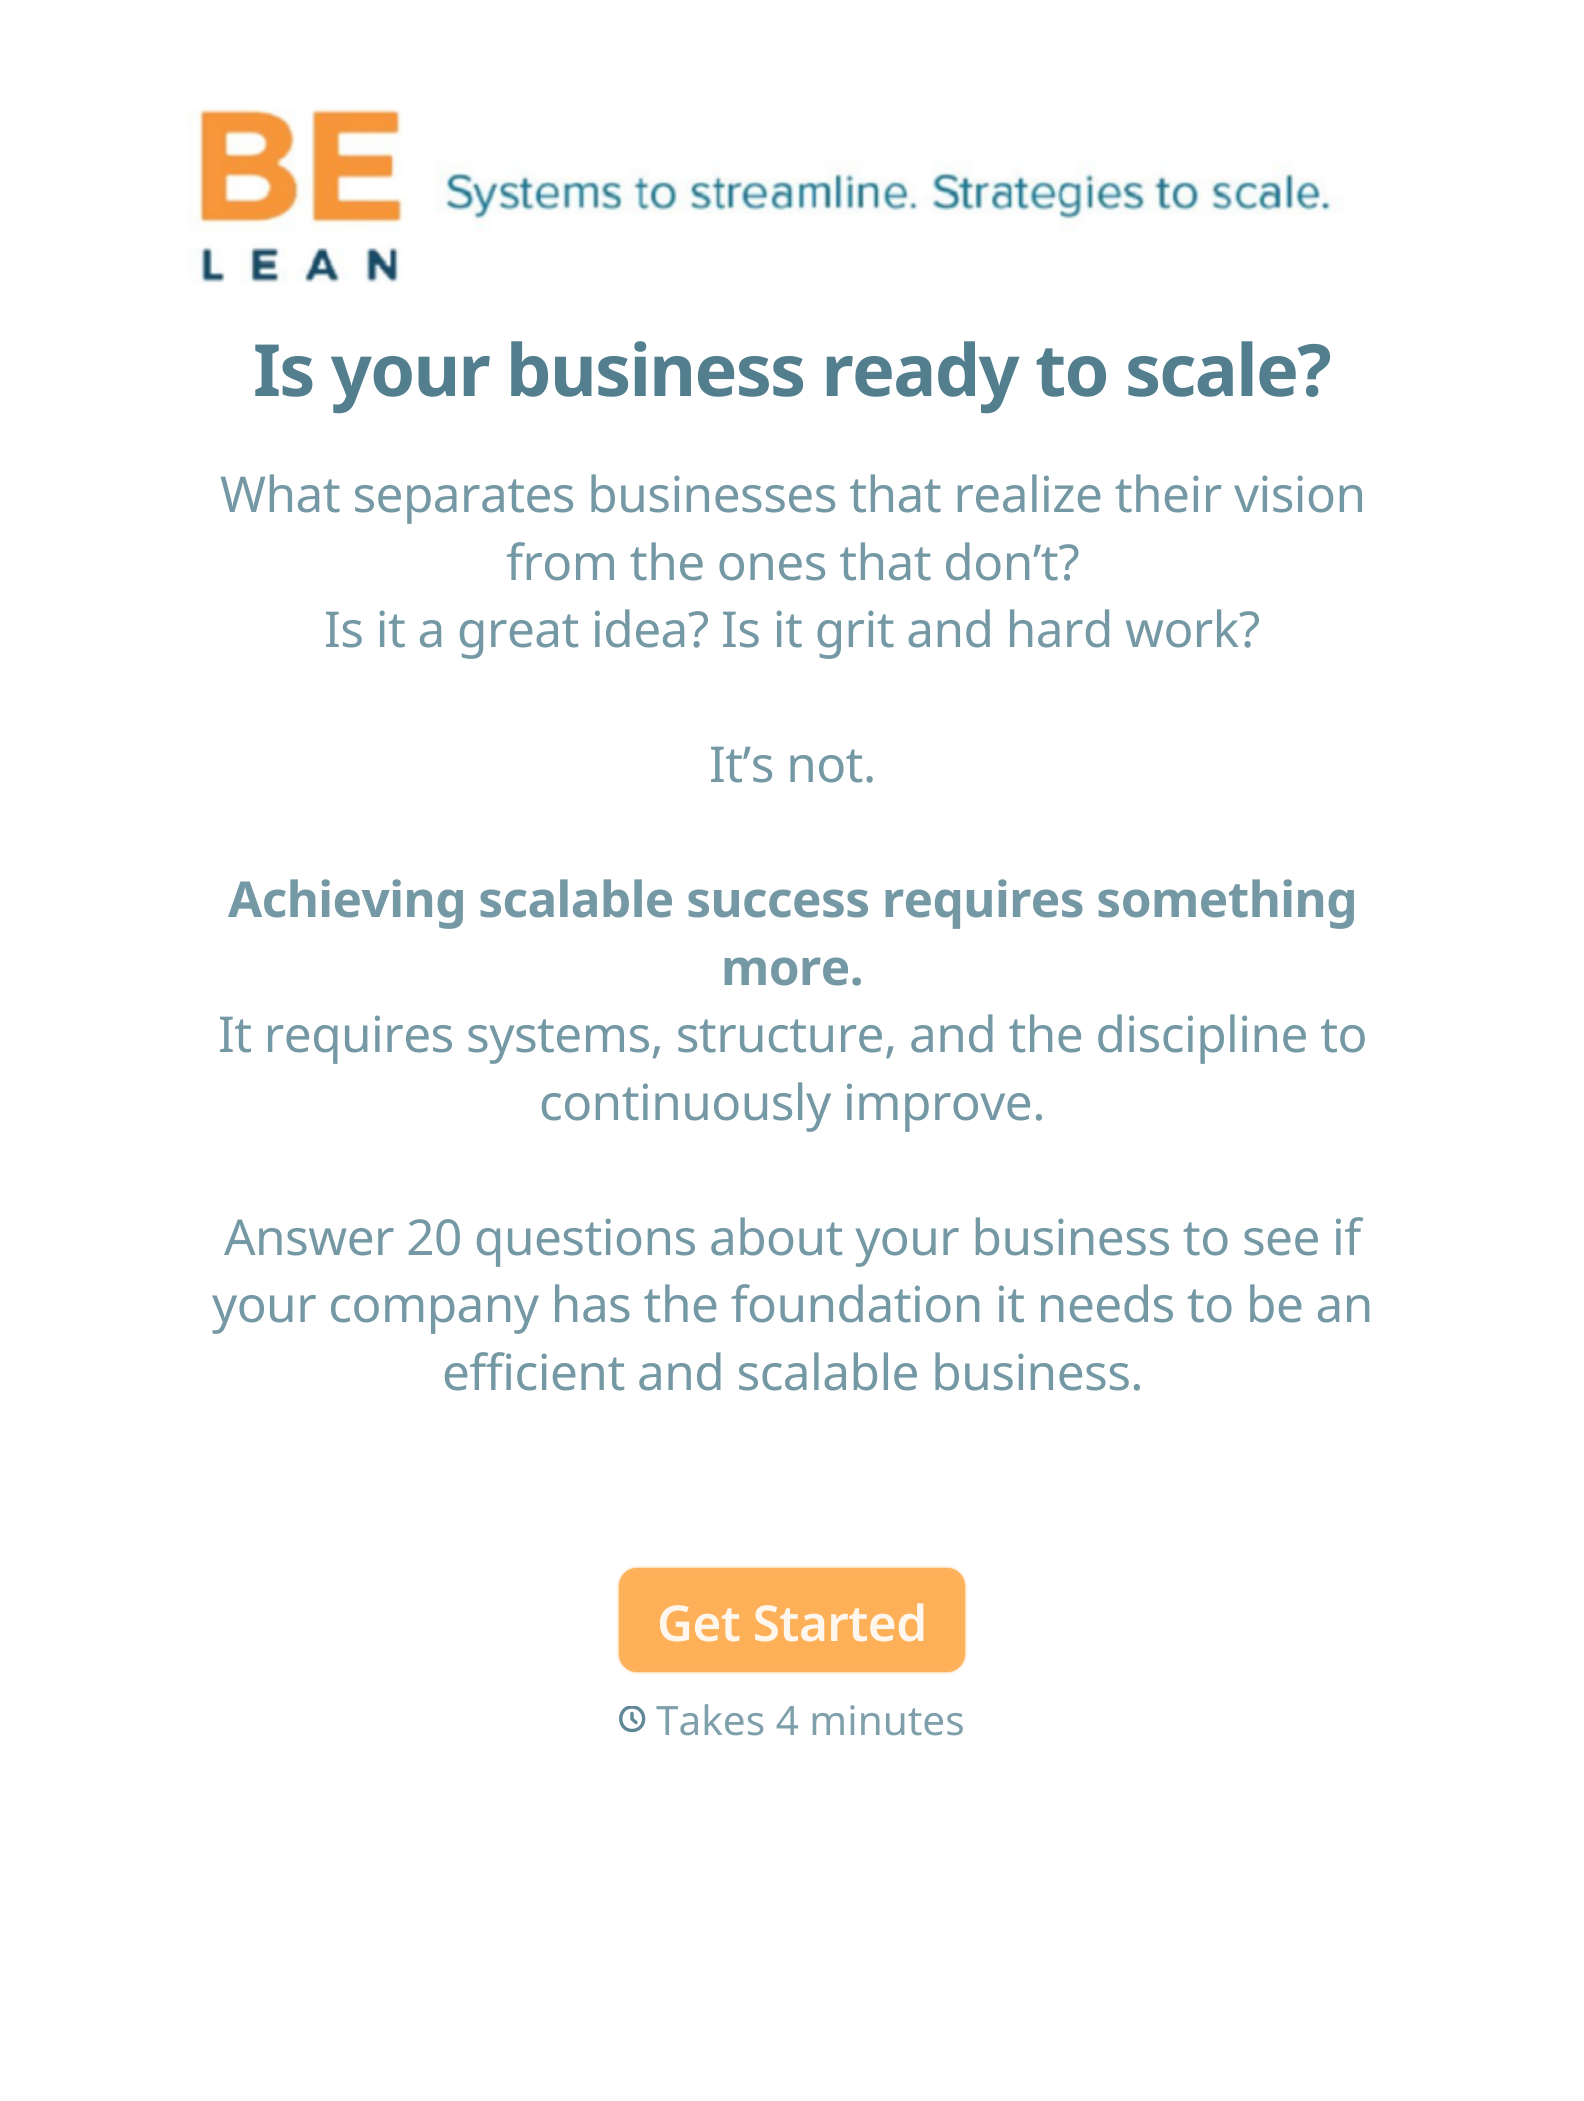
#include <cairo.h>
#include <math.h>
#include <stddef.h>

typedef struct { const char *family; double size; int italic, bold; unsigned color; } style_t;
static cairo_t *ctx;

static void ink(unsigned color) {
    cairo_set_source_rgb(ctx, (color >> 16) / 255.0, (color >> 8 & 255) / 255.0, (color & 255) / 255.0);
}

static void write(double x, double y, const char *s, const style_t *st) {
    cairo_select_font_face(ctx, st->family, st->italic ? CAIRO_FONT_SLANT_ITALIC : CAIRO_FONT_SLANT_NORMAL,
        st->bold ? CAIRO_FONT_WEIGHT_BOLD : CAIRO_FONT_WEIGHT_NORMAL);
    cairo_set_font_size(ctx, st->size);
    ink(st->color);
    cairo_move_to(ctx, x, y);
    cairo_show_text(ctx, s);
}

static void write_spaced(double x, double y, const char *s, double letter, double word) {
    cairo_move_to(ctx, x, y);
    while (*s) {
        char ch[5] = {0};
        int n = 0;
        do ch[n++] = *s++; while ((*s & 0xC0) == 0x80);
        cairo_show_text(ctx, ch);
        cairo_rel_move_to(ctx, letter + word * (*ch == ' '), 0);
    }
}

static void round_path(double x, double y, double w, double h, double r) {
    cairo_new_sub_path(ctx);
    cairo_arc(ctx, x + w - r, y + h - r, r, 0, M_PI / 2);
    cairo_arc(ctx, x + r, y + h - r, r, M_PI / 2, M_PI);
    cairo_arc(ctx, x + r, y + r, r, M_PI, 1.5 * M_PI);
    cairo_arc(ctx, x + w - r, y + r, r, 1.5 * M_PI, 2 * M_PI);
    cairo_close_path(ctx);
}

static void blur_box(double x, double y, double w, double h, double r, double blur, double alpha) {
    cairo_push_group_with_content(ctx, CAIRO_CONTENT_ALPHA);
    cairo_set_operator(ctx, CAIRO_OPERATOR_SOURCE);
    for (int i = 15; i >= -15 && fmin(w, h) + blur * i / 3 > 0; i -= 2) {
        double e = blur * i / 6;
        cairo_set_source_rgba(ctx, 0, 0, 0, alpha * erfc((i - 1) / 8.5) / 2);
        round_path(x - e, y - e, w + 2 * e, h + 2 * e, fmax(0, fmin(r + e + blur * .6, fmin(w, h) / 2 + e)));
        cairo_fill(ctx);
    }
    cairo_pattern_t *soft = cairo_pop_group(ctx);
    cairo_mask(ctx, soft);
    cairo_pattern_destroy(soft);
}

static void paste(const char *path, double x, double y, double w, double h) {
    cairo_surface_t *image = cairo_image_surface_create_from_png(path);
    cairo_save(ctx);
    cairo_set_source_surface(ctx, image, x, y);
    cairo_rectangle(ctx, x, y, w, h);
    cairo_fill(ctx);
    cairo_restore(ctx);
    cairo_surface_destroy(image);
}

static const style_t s1 = {"Noto Sans", 40.5, 0, 0, 0x7fa0ab};

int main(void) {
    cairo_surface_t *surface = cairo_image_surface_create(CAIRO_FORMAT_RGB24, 1584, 2101);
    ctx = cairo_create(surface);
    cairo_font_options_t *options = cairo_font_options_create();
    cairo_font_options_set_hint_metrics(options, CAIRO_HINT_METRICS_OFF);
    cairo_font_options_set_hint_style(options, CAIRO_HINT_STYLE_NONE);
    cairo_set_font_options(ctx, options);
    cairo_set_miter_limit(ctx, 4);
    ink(0xffffff);
    cairo_paint(ctx);
    paste("pic1.png", 187, 108, 1157, 177);
    cairo_select_font_face(ctx, "Noto Sans", CAIRO_FONT_SLANT_NORMAL, CAIRO_FONT_WEIGHT_BOLD);
    cairo_set_font_size(ctx, 72);
    ink(0x527e8e);
    write_spaced(253, 396, "Is your business ready to scale?", -1.7, 0);
    cairo_select_font_face(ctx, "Noto Sans", CAIRO_FONT_SLANT_NORMAL, CAIRO_FONT_WEIGHT_NORMAL);
    cairo_set_font_size(ctx, 49.5);
    ink(0x7498a4);
    write_spaced(220, 512, "What separates businesses that realize their vision", -0.55, 0);
    write_spaced(506, 580, "from the ones that don’t?", -0.55, 0);
    write_spaced(324, 647, "Is it a great idea? Is it grit and hard work?", -0.55, 0);
    write_spaced(709, 782, "It’s not.", -0.55, 0);
    cairo_select_font_face(ctx, "Noto Sans", CAIRO_FONT_SLANT_NORMAL, CAIRO_FONT_WEIGHT_BOLD);
    write_spaced(228, 917, "Achieving scalable success requires something", -0.55, 0);
    write_spaced(721, 985, "more.", -0.55, 0);
    cairo_select_font_face(ctx, "Noto Sans", CAIRO_FONT_SLANT_NORMAL, CAIRO_FONT_WEIGHT_NORMAL);
    write_spaced(218, 1052, "It requires systems, structure, and the discipline to", -0.55, 0);
    write_spaced(539, 1120, "continuously improve.", -0.55, 0);
    write_spaced(224, 1255, "Answer 20 questions about your business to see if", -0.55, 0);
    write_spaced(212, 1322, "your company has the foundation it needs to be an", -0.55, 0);
    write_spaced(442, 1390, "efficient and scalable business.", -0.55, 0);
    round_path(620, 1569, 344, 102, 17);
    ink(0xfdb057);
    cairo_stroke(ctx);
    ink(0xfdb057);
    blur_box(619, 1568, 346, 104, 18, 1.5, 1);
    cairo_select_font_face(ctx, "Noto Sans SemiBold", CAIRO_FONT_SLANT_NORMAL, CAIRO_FONT_WEIGHT_NORMAL);
    ink(0xfff7ee);
    write_spaced(657, 1641, "Get Started", -0.55, 0);
    cairo_new_path(ctx);
    cairo_move_to(ctx, 636, 1722.5);
    cairo_line_to(ctx, 632, 1719);
    cairo_move_to(ctx, 632, 1719);
    cairo_line_to(ctx, 632, 1713.5);
    ink(0x5f8796);
    cairo_set_line_width(ctx, 3.4);
    cairo_set_line_cap(ctx, CAIRO_LINE_CAP_ROUND);
    cairo_set_line_join(ctx, CAIRO_LINE_JOIN_ROUND);
    cairo_stroke(ctx);
    cairo_save(ctx);
    cairo_rectangle(ctx, 619, 1706, 27, 27);
    cairo_clip(ctx);
    cairo_new_path(ctx);
    cairo_move_to(ctx, 632, 1730.5);
    cairo_curve_to(ctx, 647.5, 1730.5, 647.5, 1707, 632, 1707);
    cairo_curve_to(ctx, 617, 1707, 617, 1730.5, 632, 1730.5);
    cairo_close_path(ctx);
    cairo_stroke(ctx);
    cairo_restore(ctx);
    write(656, 1735, "Takes 4 minutes", &s1);
    cairo_surface_write_to_png(surface, "screenshot.png");
    cairo_font_options_destroy(options);
    cairo_destroy(ctx);
    cairo_surface_destroy(surface);
    return 0;
}
